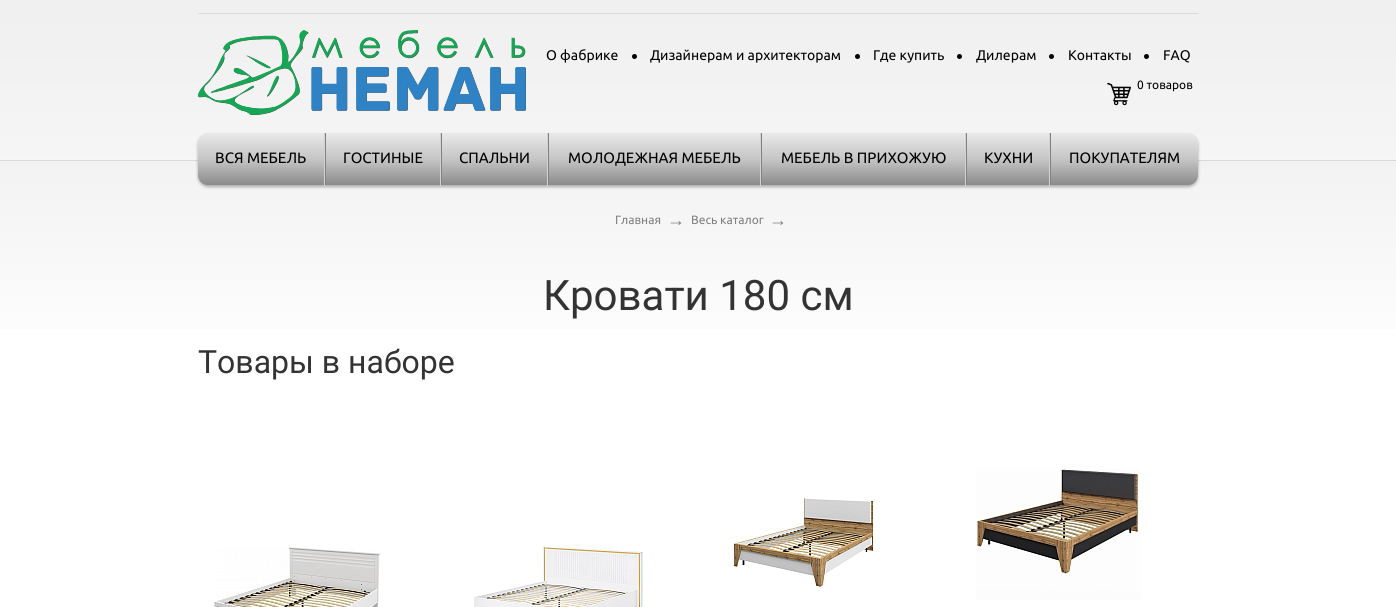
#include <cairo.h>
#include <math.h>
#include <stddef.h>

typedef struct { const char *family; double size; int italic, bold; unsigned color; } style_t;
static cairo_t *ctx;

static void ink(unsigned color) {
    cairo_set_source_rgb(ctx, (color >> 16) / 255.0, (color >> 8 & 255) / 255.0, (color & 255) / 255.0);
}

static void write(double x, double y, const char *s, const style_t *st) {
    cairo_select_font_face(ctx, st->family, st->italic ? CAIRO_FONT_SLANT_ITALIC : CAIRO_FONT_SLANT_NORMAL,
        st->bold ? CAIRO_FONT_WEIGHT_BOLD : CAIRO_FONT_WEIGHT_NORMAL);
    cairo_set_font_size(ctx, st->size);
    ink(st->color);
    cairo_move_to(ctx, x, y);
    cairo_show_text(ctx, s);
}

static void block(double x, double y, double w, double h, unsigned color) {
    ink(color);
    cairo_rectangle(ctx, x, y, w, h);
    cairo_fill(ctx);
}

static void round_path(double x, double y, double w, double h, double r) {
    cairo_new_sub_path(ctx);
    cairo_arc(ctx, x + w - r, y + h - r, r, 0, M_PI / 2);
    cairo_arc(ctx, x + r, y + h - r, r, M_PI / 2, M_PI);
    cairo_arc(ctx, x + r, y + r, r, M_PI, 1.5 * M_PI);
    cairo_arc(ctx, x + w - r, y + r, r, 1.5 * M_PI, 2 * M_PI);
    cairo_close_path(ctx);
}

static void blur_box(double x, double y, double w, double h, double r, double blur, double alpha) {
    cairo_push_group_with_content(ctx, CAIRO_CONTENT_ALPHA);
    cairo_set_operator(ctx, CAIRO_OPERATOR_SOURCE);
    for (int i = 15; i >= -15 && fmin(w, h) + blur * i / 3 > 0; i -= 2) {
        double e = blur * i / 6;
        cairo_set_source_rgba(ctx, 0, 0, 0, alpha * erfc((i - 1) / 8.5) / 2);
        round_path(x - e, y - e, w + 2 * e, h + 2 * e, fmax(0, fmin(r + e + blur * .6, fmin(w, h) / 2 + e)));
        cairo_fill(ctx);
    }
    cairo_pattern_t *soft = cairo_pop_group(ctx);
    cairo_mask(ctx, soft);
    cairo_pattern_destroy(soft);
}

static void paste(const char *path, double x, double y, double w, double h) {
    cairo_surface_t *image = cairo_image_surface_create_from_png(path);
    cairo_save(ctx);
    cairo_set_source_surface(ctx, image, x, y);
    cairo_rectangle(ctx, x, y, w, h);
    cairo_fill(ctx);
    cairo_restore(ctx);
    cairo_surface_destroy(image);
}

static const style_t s1 = {"Ubuntu", 14, 0, 0, 0x000000};
static const style_t s2 = {"Ubuntu", 12, 0, 0, 0x000000};
static const style_t s3 = {"Ubuntu", 15, 0, 0, 0x000000};
static const style_t s4 = {"Ubuntu", 12, 0, 0, 0x808080};
static const style_t s5 = {"Liberation Serif", 18, 0, 0, 0x808080};
static const style_t s6 = {"Roboto", 42, 0, 0, 0x333333};
static const style_t s7 = {"Roboto", 32, 0, 0, 0x333333};

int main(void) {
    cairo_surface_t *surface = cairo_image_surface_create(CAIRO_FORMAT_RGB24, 1396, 607);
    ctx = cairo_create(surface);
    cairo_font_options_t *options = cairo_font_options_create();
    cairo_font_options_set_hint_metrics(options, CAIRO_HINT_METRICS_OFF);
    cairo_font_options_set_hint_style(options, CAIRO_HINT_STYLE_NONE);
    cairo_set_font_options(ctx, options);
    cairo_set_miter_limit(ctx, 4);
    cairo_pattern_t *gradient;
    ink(0xffffff);
    cairo_paint(ctx);
    paste("pic1.png", 0, 0, 1396, 160);
    block(198, 13, 1000, 1, 0xd9d9d9);
    paste("pic2.png", 198, 30, 328, 85);
    write(546, 60, "О фабрике", &s1);
    cairo_new_path(ctx);
    cairo_arc(ctx, 634.5, 56.5, 2.5, 0, 2 * M_PI);
    cairo_fill(ctx);
    write(650, 60, "Дизайнерам и архитекторам", &s1);
    cairo_new_path(ctx);
    cairo_arc(ctx, 857.5, 56.5, 2.5, 0, 2 * M_PI);
    cairo_fill(ctx);
    write(873, 60, "Где купить", &s1);
    cairo_new_path(ctx);
    cairo_arc(ctx, 959.5, 56.5, 2.5, 0, 2 * M_PI);
    cairo_fill(ctx);
    write(976, 60, "Дилерам", &s1);
    cairo_new_path(ctx);
    cairo_arc(ctx, 1051.5, 56.5, 2.5, 0, 2 * M_PI);
    cairo_fill(ctx);
    write(1068, 60, "Контакты", &s1);
    cairo_new_path(ctx);
    cairo_arc(ctx, 1146.5, 56.5, 2.5, 0, 2 * M_PI);
    cairo_fill(ctx);
    write(1163, 60, "FAQ", &s1);
    paste("pic3.png", 1107, 82, 24, 24);
    write(1137, 89, "0 товаров", &s2);
    gradient = cairo_pattern_create_linear(698, 161, 698, 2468);
    cairo_pattern_add_color_stop_rgba(gradient, 0, 0.949, 0.949, 0.949, 1);
    cairo_pattern_add_color_stop_rgba(gradient, 0.09, 1, 1, 1, 1);
    cairo_set_source(ctx, gradient);
    cairo_pattern_destroy(gradient);
    cairo_rectangle(ctx, 0, 161, 1396, 168);
    cairo_fill(ctx);
    block(0, 160, 1396, 1, 0xd9d9d9);
    ink(0x000000);
    blur_box(198, 135, 1000, 52, 10, 1.5, 0.3);
    gradient = cairo_pattern_create_linear(261, 117, 261, 185);
    cairo_pattern_add_color_stop_rgba(gradient, 0, 1, 1, 1, 1);
    cairo_pattern_add_color_stop_rgba(gradient, 0.63, 0.769, 0.769, 0.769, 1);
    cairo_pattern_add_color_stop_rgba(gradient, 1, 0.545, 0.545, 0.545, 1);
    cairo_set_source(ctx, gradient);
    cairo_pattern_destroy(gradient);
    cairo_new_path(ctx);
    cairo_move_to(ctx, 208, 133);
    cairo_line_to(ctx, 324, 133);
    cairo_line_to(ctx, 324, 185);
    cairo_line_to(ctx, 208, 185);
    cairo_curve_to(ctx, 202.5, 185, 198, 180.5, 198, 175);
    cairo_line_to(ctx, 198, 143);
    cairo_curve_to(ctx, 198, 137.5, 202.5, 133, 208, 133);
    cairo_close_path(ctx);
    cairo_fill(ctx);
    write(215, 163, "ВСЯ МЕБЕЛЬ", &s3);
    gradient = cairo_pattern_create_linear(383, 117, 383, 185);
    cairo_pattern_add_color_stop_rgba(gradient, 0, 1, 1, 1, 1);
    cairo_pattern_add_color_stop_rgba(gradient, 0.63, 0.769, 0.769, 0.769, 1);
    cairo_pattern_add_color_stop_rgba(gradient, 1, 0.545, 0.545, 0.545, 1);
    cairo_set_source(ctx, gradient);
    cairo_pattern_destroy(gradient);
    cairo_rectangle(ctx, 326, 134, 114, 51);
    cairo_fill(ctx);
    block(324, 133, 1, 53, 0xd3d3d3);
    block(325, 133, 1, 52, 0x808080);
    write(343, 163, "ГОСТИНЫЕ", &s3);
    gradient = cairo_pattern_create_linear(495, 117, 495, 185);
    cairo_pattern_add_color_stop_rgba(gradient, 0, 1, 1, 1, 1);
    cairo_pattern_add_color_stop_rgba(gradient, 0.63, 0.769, 0.769, 0.769, 1);
    cairo_pattern_add_color_stop_rgba(gradient, 1, 0.545, 0.545, 0.545, 1);
    cairo_set_source(ctx, gradient);
    cairo_pattern_destroy(gradient);
    cairo_rectangle(ctx, 442, 134, 105, 51);
    cairo_fill(ctx);
    block(440, 133, 1, 53, 0xd3d3d3);
    block(441, 133, 1, 52, 0x808080);
    write(459, 163, "СПАЛЬНИ", &s3);
    gradient = cairo_pattern_create_linear(655, 117, 655, 185);
    cairo_pattern_add_color_stop_rgba(gradient, 0, 1, 1, 1, 1);
    cairo_pattern_add_color_stop_rgba(gradient, 0.63, 0.769, 0.769, 0.769, 1);
    cairo_pattern_add_color_stop_rgba(gradient, 1, 0.545, 0.545, 0.545, 1);
    cairo_set_source(ctx, gradient);
    cairo_pattern_destroy(gradient);
    cairo_rectangle(ctx, 549, 134, 211, 51);
    cairo_fill(ctx);
    block(547, 133, 1, 53, 0xd3d3d3);
    block(548, 133, 1, 52, 0x808080);
    write(568, 163, "МОЛОДЕЖНАЯ МЕБЕЛЬ", &s3);
    gradient = cairo_pattern_create_linear(864, 117, 864, 185);
    cairo_pattern_add_color_stop_rgba(gradient, 0, 1, 1, 1, 1);
    cairo_pattern_add_color_stop_rgba(gradient, 0.63, 0.769, 0.769, 0.769, 1);
    cairo_pattern_add_color_stop_rgba(gradient, 1, 0.545, 0.545, 0.545, 1);
    cairo_set_source(ctx, gradient);
    cairo_pattern_destroy(gradient);
    cairo_rectangle(ctx, 762, 134, 203, 51);
    cairo_fill(ctx);
    block(760, 133, 1, 53, 0xd3d3d3);
    block(761, 133, 1, 52, 0x808080);
    write(781, 163, "МЕБЕЛЬ В ПРИХОЖУЮ", &s3);
    gradient = cairo_pattern_create_linear(1009, 117, 1009, 185);
    cairo_pattern_add_color_stop_rgba(gradient, 0, 1, 1, 1, 1);
    cairo_pattern_add_color_stop_rgba(gradient, 0.63, 0.769, 0.769, 0.769, 1);
    cairo_pattern_add_color_stop_rgba(gradient, 1, 0.545, 0.545, 0.545, 1);
    cairo_set_source(ctx, gradient);
    cairo_pattern_destroy(gradient);
    cairo_rectangle(ctx, 967, 134, 82, 51);
    cairo_fill(ctx);
    block(965, 133, 1, 53, 0xd3d3d3);
    block(966, 133, 1, 52, 0x808080);
    write(984, 163, "КУХНИ", &s3);
    gradient = cairo_pattern_create_linear(1125, 117, 1125, 185);
    cairo_pattern_add_color_stop_rgba(gradient, 0, 1, 1, 1, 1);
    cairo_pattern_add_color_stop_rgba(gradient, 0.63, 0.769, 0.769, 0.769, 1);
    cairo_pattern_add_color_stop_rgba(gradient, 1, 0.545, 0.545, 0.545, 1);
    cairo_set_source(ctx, gradient);
    cairo_pattern_destroy(gradient);
    cairo_new_path(ctx);
    cairo_move_to(ctx, 1050, 133);
    cairo_line_to(ctx, 1188, 133);
    cairo_curve_to(ctx, 1193.5, 133, 1198, 137.5, 1198, 143);
    cairo_line_to(ctx, 1198, 175);
    cairo_curve_to(ctx, 1198, 180.5, 1193.5, 185, 1188, 185);
    cairo_line_to(ctx, 1050, 185);
    cairo_close_path(ctx);
    cairo_fill(ctx);
    block(1049, 133, 1, 53, 0xd3d3d3);
    block(1050, 133, 1, 52, 0x808080);
    write(1069, 163, "ПОКУПАТЕЛЯМ", &s3);
    write(615, 224, "Главная", &s4);
    write(667, 226, "→", &s5);
    write(691, 224, "Весь каталог", &s4);
    write(769, 226, "→", &s5);
    write(543, 310, "Кровати 180 см", &s6);
    write(198, 373, "Товары в наборе", &s7);
    paste("pic4.png", 214, 547, 167, 60);
    paste("pic5.png", 474, 546, 169, 61);
    paste("pic6.png", 733, 498, 140, 89);
    paste("pic7.png", 976, 469, 165, 131);
    cairo_surface_write_to_png(surface, "screenshot.png");
    cairo_font_options_destroy(options);
    cairo_destroy(ctx);
    cairo_surface_destroy(surface);
    return 0;
}
